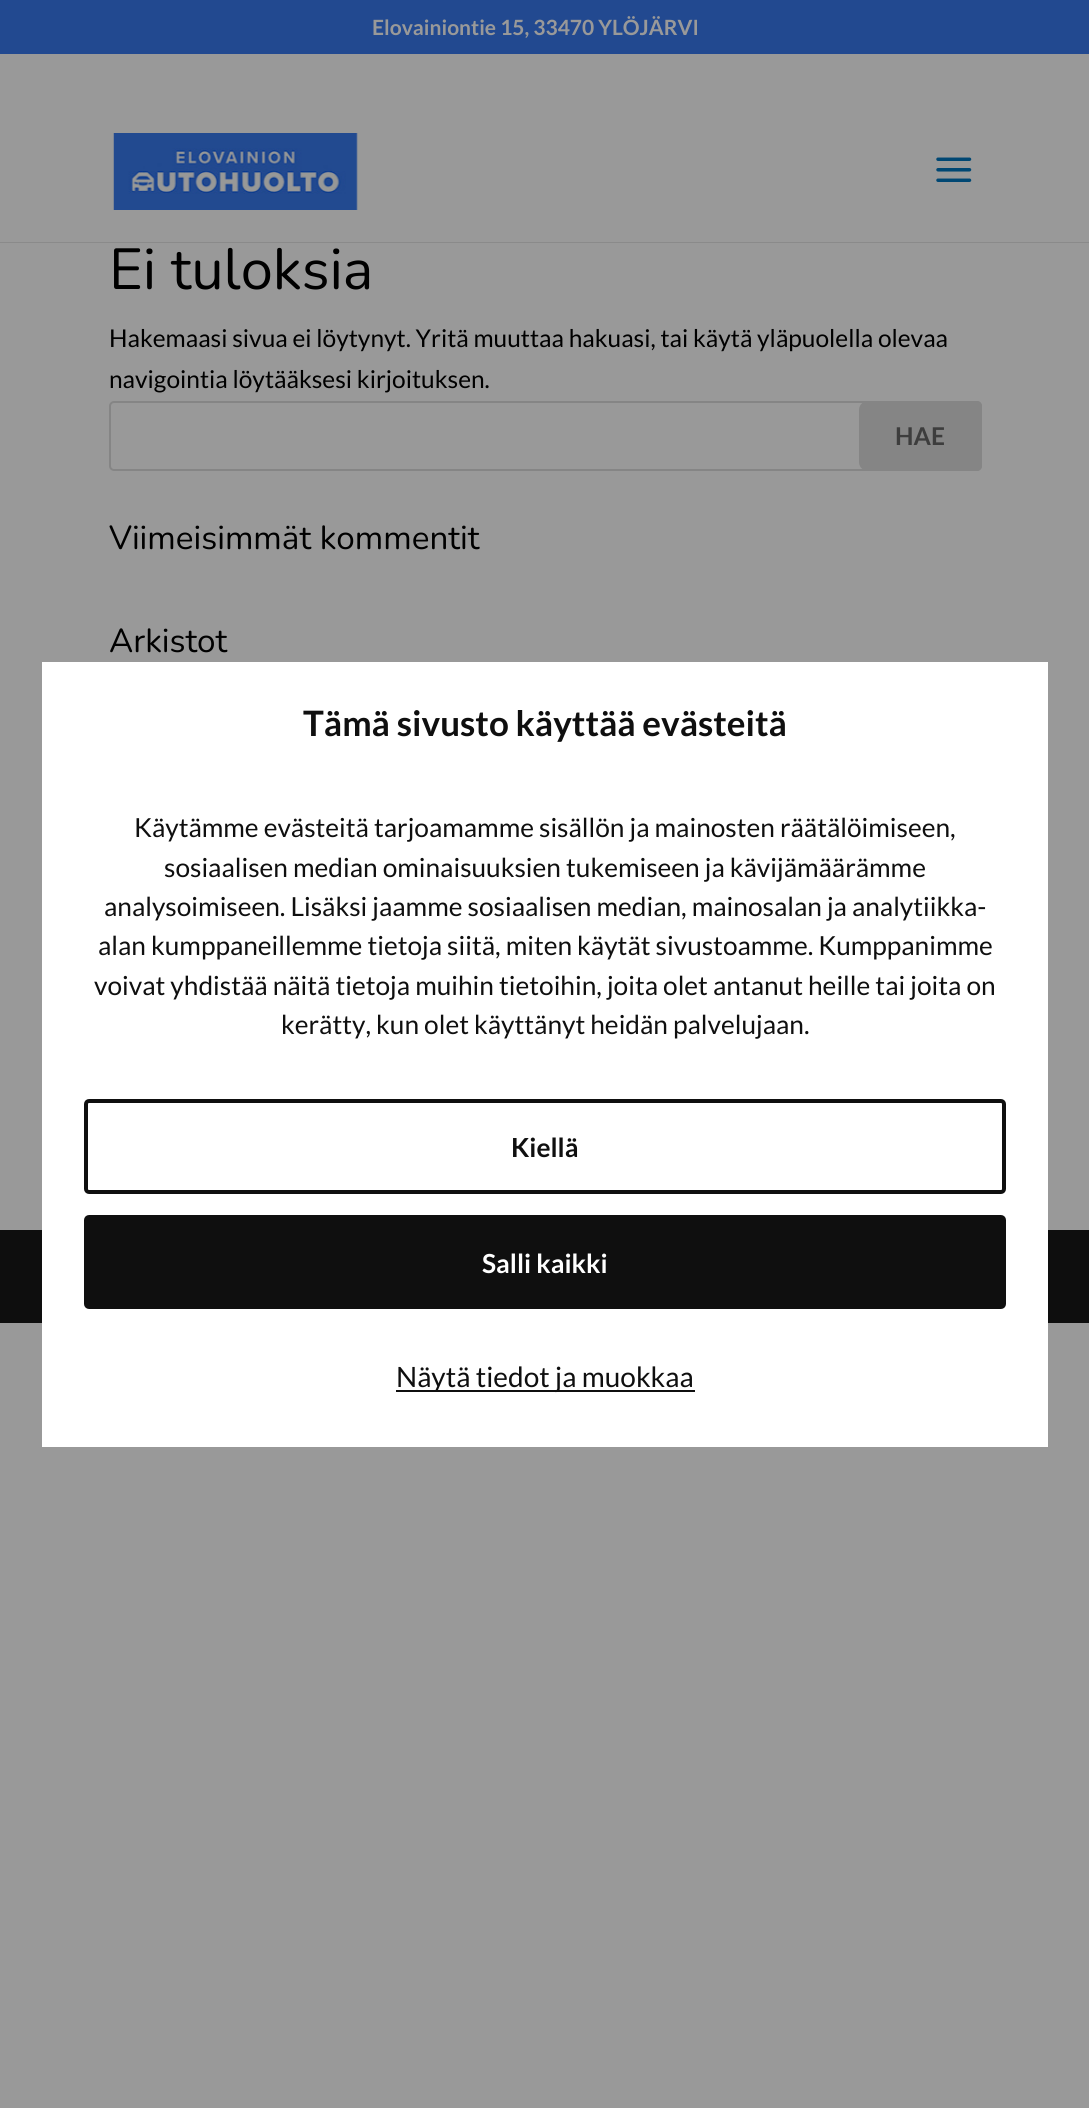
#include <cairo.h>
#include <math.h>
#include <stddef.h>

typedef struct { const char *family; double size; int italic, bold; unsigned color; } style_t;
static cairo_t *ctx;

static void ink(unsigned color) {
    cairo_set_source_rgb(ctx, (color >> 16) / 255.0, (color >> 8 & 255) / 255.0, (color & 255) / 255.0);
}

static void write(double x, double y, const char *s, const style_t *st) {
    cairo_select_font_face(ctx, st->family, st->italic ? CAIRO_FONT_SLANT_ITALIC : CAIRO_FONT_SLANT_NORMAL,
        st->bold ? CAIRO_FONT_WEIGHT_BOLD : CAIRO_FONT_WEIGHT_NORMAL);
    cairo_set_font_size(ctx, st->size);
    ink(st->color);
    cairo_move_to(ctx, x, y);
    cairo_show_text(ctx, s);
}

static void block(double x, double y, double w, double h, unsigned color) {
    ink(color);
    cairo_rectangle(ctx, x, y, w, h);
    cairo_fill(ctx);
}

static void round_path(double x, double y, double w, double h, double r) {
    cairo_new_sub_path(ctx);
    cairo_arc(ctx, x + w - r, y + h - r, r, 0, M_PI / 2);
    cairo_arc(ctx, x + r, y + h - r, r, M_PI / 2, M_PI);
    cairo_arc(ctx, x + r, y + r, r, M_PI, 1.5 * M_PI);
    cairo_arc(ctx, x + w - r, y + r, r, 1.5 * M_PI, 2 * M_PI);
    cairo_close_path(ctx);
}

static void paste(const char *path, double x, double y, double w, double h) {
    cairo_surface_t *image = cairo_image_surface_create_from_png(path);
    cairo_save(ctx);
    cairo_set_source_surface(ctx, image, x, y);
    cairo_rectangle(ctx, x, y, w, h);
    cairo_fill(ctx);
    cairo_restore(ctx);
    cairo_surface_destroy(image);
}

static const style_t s1 = {"Lato", 21, 0, 1, 0x999999};
static const style_t s2 = {"Nunito", 57.75, 0, 0, 0x000000};
static const style_t s3 = {"Lato", 24.5, 0, 0, 0x000000};
static const style_t s4 = {"Lato", 24.5, 0, 1, 0x3d3d3d};
static const style_t s5 = {"Nunito", 33.25, 0, 0, 0x000000};
static const style_t s6 = {"Lato", 35, 0, 1, 0x0f0f0f};
static const style_t s7 = {"Lato", 26.25, 0, 0, 0x0f0f0f};
static const style_t s8 = {"Lato", 26.25, 0, 1, 0x0f0f0f};
static const style_t s9 = {"Lato", 26.25, 0, 1, 0xffffff};
static const style_t s10 = {"Lato", 28, 0, 0, 0x0f0f0f};

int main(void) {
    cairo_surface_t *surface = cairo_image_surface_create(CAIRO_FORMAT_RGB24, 1089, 2108);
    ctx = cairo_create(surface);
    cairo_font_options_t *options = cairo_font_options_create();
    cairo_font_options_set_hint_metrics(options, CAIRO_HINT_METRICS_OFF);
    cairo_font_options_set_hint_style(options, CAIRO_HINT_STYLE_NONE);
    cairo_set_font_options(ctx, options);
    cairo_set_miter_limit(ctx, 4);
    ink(0x999999);
    cairo_paint(ctx);
    block(0, 0, 1089, 54, 0x224990);
    write(372, 35, "Elovainiontie 15, 33470 YLÖJÄRVI", &s1);
    block(0, 242, 1089, 1, 0x8a8a8a);
    paste("pic1.png", 113, 133, 245, 77);
    paste("pic2.png", 936, 157, 36, 25);
    write(109, 289, "Ei tuloksia", &s2);
    write(109, 347, "Hakemaasi sivua ei löytynyt. Yritä muuttaa hakuasi, tai käytä yläpuolella olevaa", &s3);
    write(109, 388, "navigointia löytääksesi kirjoituksen.", &s3);
    round_path(110, 402, 871, 68, 4);
    ink(0x858585);
    cairo_stroke(ctx);
    cairo_new_path(ctx);
    cairo_move_to(ctx, 868, 402);
    cairo_line_to(ctx, 977, 402);
    cairo_curve_to(ctx, 979, 402, 981, 404, 981, 406);
    cairo_line_to(ctx, 981, 466);
    cairo_curve_to(ctx, 981, 468, 979, 470, 977, 470);
    cairo_line_to(ctx, 868, 470);
    cairo_curve_to(ctx, 863.5, 470, 860, 466.5, 860, 462);
    cairo_line_to(ctx, 860, 410);
    cairo_curve_to(ctx, 860, 405.5, 863.5, 402, 868, 402);
    cairo_close_path(ctx);
    cairo_fill_preserve(ctx);
    cairo_stroke(ctx);
    write(895, 445, "HAE", &s4);
    write(109, 549, "Viimeisimmät kommentit", &s5);
    write(109, 652, "Arkistot", &s5);
    block(0, 1230, 1089, 93, 0x0e0e0e);
    block(42, 662, 1006, 785, 0xffffff);
    write(303, 736, "Tämä sivusto käyttää evästeitä", &s6);
    write(134, 837, "Käytämme evästeitä tarjoamamme sisällön ja mainosten räätälöimiseen,", &s7);
    write(164, 877, "sosiaalisen median ominaisuuksien tukemiseen ja kävijämäärämme", &s7);
    write(104, 916, "analysoimiseen. Lisäksi jaamme sosiaalisen median, mainosalan ja analytiikka-", &s7);
    write(98, 955, "alan kumppaneillemme tietoja siitä, miten käytät sivustoamme. Kumppanimme", &s7);
    write(94, 995, "voivat yhdistää näitä tietoja muihin tietoihin, joita olet antanut heille tai joita on", &s7);
    write(281, 1034, "kerätty, kun olet käyttänyt heidän palvelujaan.", &s7);
    round_path(86, 1101, 918, 91, 3);
    cairo_set_line_width(ctx, 4);
    cairo_stroke(ctx);
    write(511, 1157, "Kiellä", &s8);
    round_path(86, 1217, 918, 90, 3);
    cairo_fill_preserve(ctx);
    cairo_stroke(ctx);
    write(482, 1273, "Salli kaikki", &s9);
    block(396, 1390, 299, 2, 0x0f0f0f);
    write(396, 1387, "Näytä tiedot ja muokkaa", &s10);
    cairo_surface_write_to_png(surface, "screenshot.png");
    cairo_font_options_destroy(options);
    cairo_destroy(ctx);
    cairo_surface_destroy(surface);
    return 0;
}
